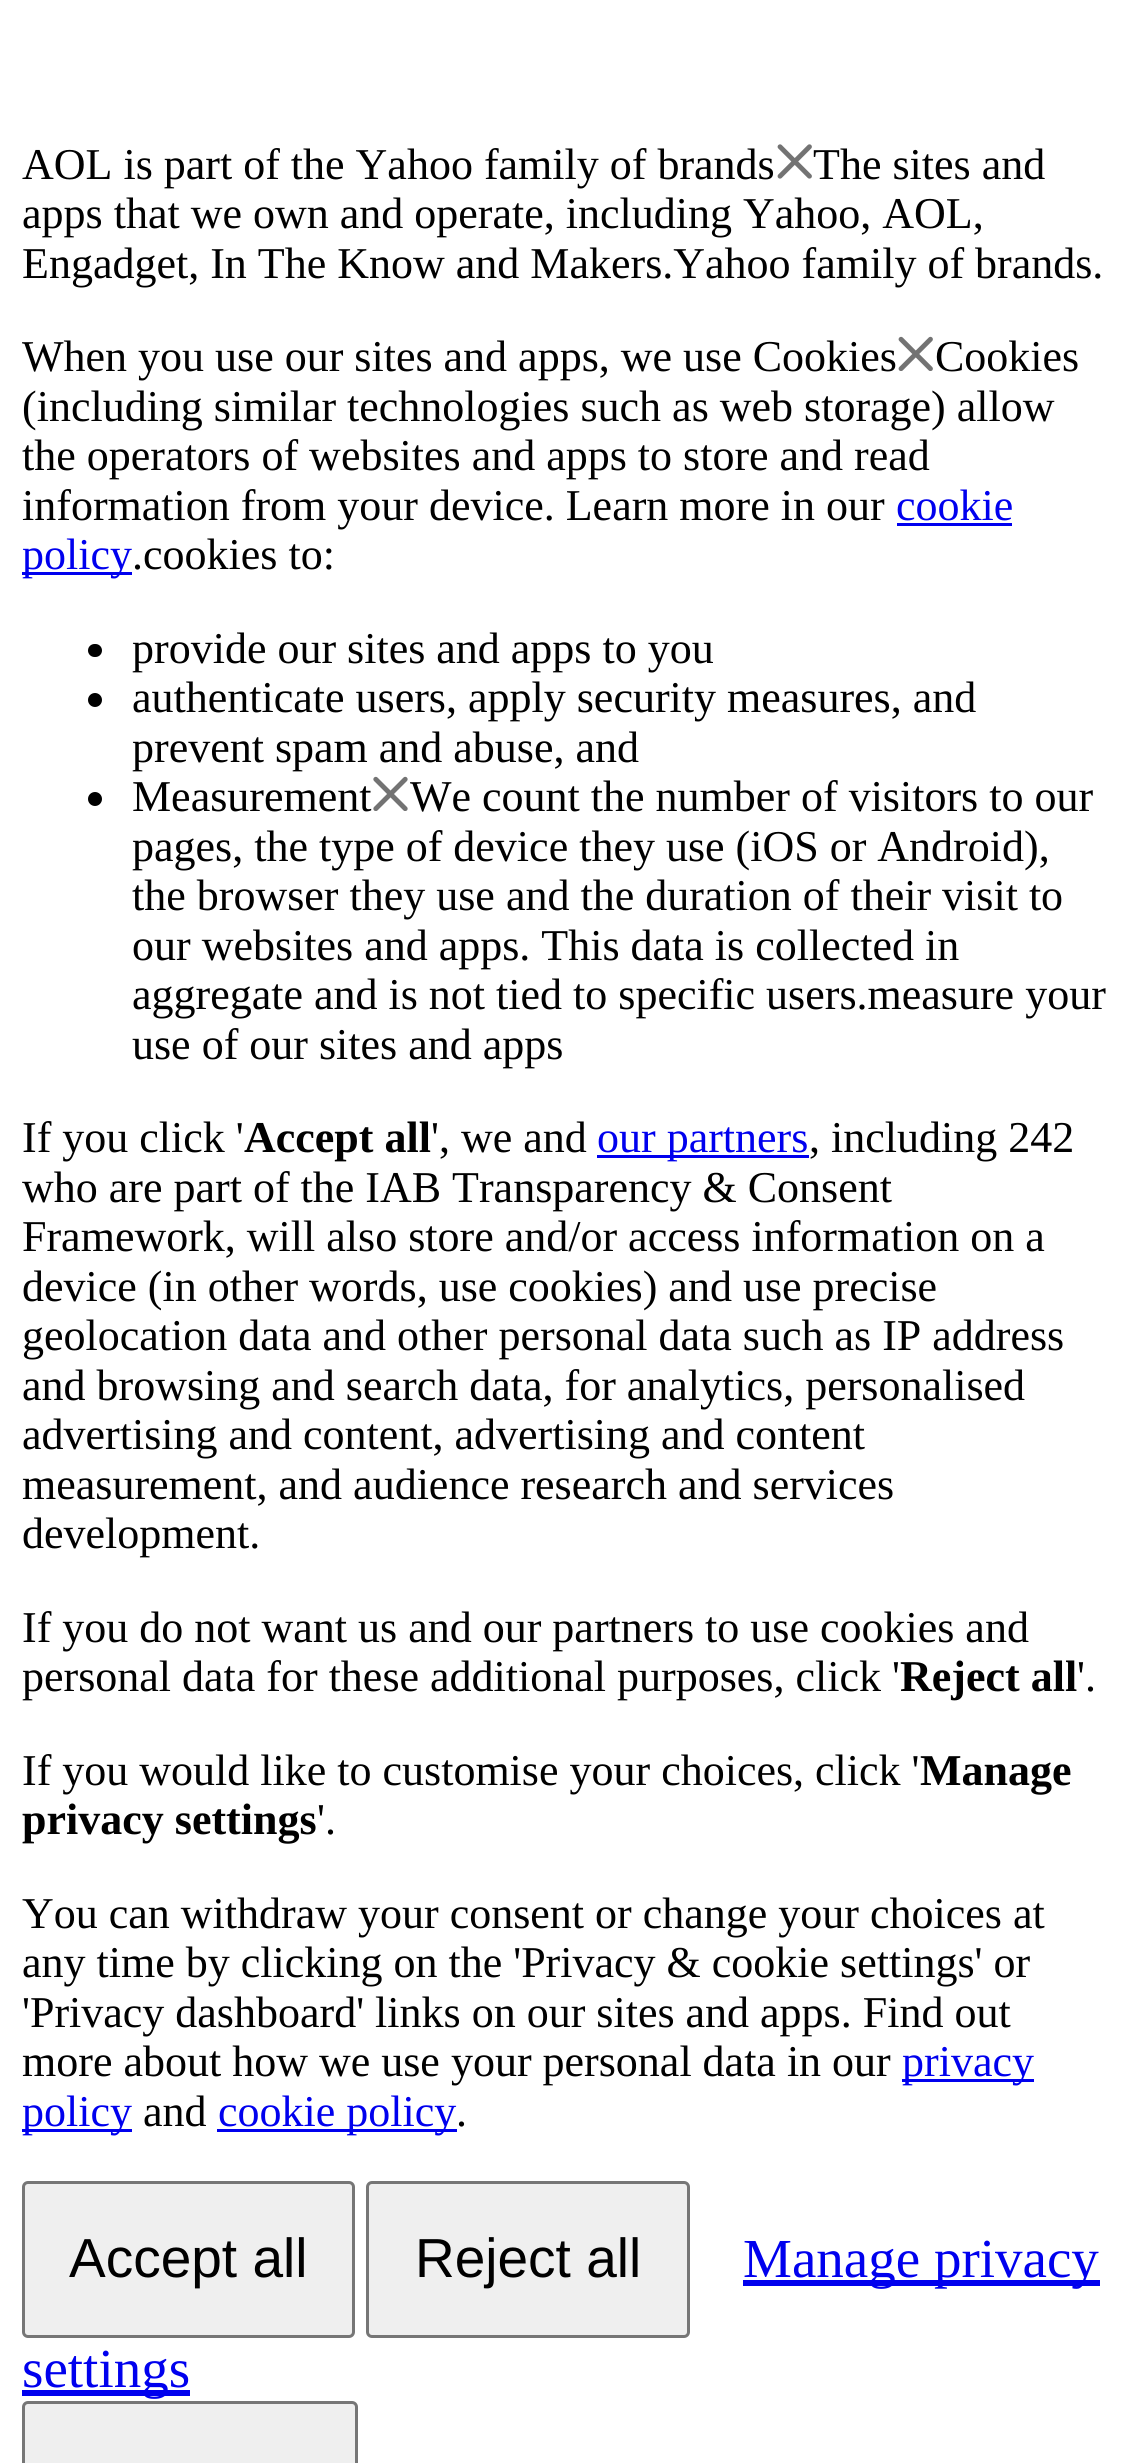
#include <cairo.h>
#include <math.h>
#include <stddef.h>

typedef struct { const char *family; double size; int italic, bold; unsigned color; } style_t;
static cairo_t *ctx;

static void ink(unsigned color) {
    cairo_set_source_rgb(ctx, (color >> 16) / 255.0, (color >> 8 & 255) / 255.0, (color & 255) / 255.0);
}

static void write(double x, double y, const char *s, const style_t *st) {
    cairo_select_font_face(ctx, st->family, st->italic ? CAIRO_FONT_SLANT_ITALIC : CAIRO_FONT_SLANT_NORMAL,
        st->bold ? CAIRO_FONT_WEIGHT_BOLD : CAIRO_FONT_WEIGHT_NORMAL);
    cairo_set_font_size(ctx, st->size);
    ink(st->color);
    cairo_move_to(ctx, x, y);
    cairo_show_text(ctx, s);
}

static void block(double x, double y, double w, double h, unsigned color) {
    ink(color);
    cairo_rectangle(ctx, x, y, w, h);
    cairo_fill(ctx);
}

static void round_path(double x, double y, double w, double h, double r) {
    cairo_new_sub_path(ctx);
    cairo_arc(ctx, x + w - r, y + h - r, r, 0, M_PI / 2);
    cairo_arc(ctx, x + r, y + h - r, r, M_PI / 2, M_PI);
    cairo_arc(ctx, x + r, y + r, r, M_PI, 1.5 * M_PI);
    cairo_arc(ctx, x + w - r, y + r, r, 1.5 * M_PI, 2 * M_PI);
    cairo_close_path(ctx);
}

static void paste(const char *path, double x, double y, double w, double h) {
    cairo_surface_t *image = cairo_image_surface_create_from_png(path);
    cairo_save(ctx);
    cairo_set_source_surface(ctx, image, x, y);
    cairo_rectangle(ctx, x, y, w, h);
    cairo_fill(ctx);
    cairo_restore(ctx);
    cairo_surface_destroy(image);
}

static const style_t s1 = {"Liberation Serif", 44, 0, 0, 0x000000};
static const style_t s2 = {"Liberation Serif", 44, 0, 0, 0x0000ee};
static const style_t s3 = {"Liberation Serif", 44, 0, 1, 0x000000};
static const style_t s4 = {"Liberation Sans", 55, 0, 0, 0x000000};
static const style_t s5 = {"Liberation Serif", 55, 0, 0, 0x0000ee};

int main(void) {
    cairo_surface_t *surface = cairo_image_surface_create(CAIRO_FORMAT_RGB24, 1128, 2463);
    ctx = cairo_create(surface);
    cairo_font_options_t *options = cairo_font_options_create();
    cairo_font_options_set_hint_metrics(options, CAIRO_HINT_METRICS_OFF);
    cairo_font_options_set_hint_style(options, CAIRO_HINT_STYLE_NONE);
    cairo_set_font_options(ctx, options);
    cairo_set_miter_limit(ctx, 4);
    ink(0xffffff);
    cairo_paint(ctx);
    write(22, 179, "AOL is part of the Yahoo family of brands", &s1);
    paste("pic1.png", 777, 144, 35, 35);
    write(813, 179, "The sites and", &s1);
    write(22, 228, "apps that we own and operate, including Yahoo, AOL,", &s1);
    write(22, 278, "Engadget, In The Know and Makers.Yahoo family of brands.", &s1);
    write(22, 371, "When you use our sites and apps, we use Cookies", &s1);
    paste("pic2.png", 898, 336, 35, 35);
    write(935, 371, "Cookies", &s1);
    write(22, 421, "(including similar technologies such as web storage) allow", &s1);
    write(22, 470, "the operators of websites and apps to store and read", &s1);
    write(22, 520, "information from your device. Learn more in our", &s1);
    write(896, 520, "cookie", &s2);
    block(897, 523, 115, 3, 0x0000ee);
    block(22, 572, 110, 3, 0x0000ee);
    write(22, 569, "policy", &s2);
    write(132, 569, ".cookies to:", &s1);
    round_path(88, 644, 14, 13, 6.5);
    cairo_fill(ctx);
    write(132, 663, "provide our sites and apps to you", &s1);
    cairo_new_path(ctx);
    cairo_arc(ctx, 95, 700, 7, 0, 2 * M_PI);
    cairo_fill(ctx);
    write(132, 712, "authenticate users, apply security measures, and", &s1);
    write(132, 762, "prevent spam and abuse, and", &s1);
    cairo_new_path(ctx);
    cairo_arc(ctx, 95, 799, 7, 0, 2 * M_PI);
    cairo_fill(ctx);
    write(132, 811, "Measurement", &s1);
    paste("pic3.png", 373, 776, 35, 35);
    write(410, 811, "We count the number of visitors to our", &s1);
    write(132, 861, "pages, the type of device they use (iOS or Android),", &s1);
    write(132, 910, "the browser they use and the duration of their visit to", &s1);
    write(132, 960, "our websites and apps. This data is collected in", &s1);
    write(132, 1009, "aggregate and is not tied to specific users.measure your", &s1);
    write(132, 1059, "use of our sites and apps", &s1);
    write(22, 1152, "If you click '", &s1);
    write(244, 1152, "Accept all", &s3);
    write(431, 1152, "', we and", &s1);
    block(597, 1155, 212, 3, 0x0000ee);
    write(597, 1152, "our partners", &s2);
    write(809, 1152, ", including 242", &s1);
    write(22, 1202, "who are part of the IAB Transparency & Consent", &s1);
    write(22, 1251, "Framework, will also store and/or access information on a", &s1);
    write(22, 1301, "device (in other words, use cookies) and use precise", &s1);
    write(22, 1350, "geolocation data and other personal data such as IP address", &s1);
    write(22, 1400, "and browsing and search data, for analytics, personalised", &s1);
    write(22, 1449, "advertising and content, advertising and content", &s1);
    write(22, 1499, "measurement, and audience research and services", &s1);
    write(22, 1548, "development.", &s1);
    write(22, 1642, "If you do not want us and our partners to use cookies and", &s1);
    write(22, 1691, "personal data for these additional purposes, click '", &s1);
    write(900, 1691, "Reject all", &s3);
    write(1077, 1691, "'.", &s1);
    write(22, 1785, "If you would like to customise your choices, click '", &s1);
    write(920, 1785, "Manage", &s3);
    write(22, 1834, "privacy settings", &s3);
    write(317, 1834, "'.", &s1);
    write(22, 1928, "You can withdraw your consent or change your choices at", &s1);
    write(22, 1977, "any time by clicking on the 'Privacy & cookie settings' or", &s1);
    write(22, 2027, "'Privacy dashboard' links on our sites and apps. Find out", &s1);
    write(22, 2076, "more about how we use your personal data in our", &s1);
    block(902, 2079, 132, 3, 0x0000ee);
    write(902, 2076, "privacy", &s2);
    block(22, 2129, 110, 3, 0x0000ee);
    write(22, 2126, "policy", &s2);
    write(143, 2126, "and", &s1);
    block(217, 2129, 240, 3, 0x0000ee);
    write(218, 2126, "cookie policy", &s2);
    write(456, 2126, ".", &s1);
    ink(0xefefef);
    round_path(23.5, 2182.5, 330, 154, 4.5);
    cairo_fill_preserve(ctx);
    ink(0x767676);
    cairo_set_line_width(ctx, 3);
    cairo_stroke(ctx);
    write(69, 2277, "Accept all", &s4);
    ink(0xefefef);
    round_path(367.5, 2182.5, 321, 154, 4.5);
    cairo_fill_preserve(ctx);
    ink(0x767676);
    cairo_stroke(ctx);
    write(415, 2277, "Reject all", &s4);
    block(743, 2280, 357, 6, 0x0000ee);
    write(743, 2277, "Manage privacy", &s5);
    block(22, 2390, 168, 6, 0x0000ee);
    write(22, 2387, "settings", &s5);
    ink(0xefefef);
    round_path(23.5, 2402.5, 333, 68, 4.5);
    cairo_fill_preserve(ctx);
    ink(0x767676);
    cairo_stroke(ctx);
    cairo_surface_write_to_png(surface, "screenshot.png");
    cairo_font_options_destroy(options);
    cairo_destroy(ctx);
    cairo_surface_destroy(surface);
    return 0;
}
